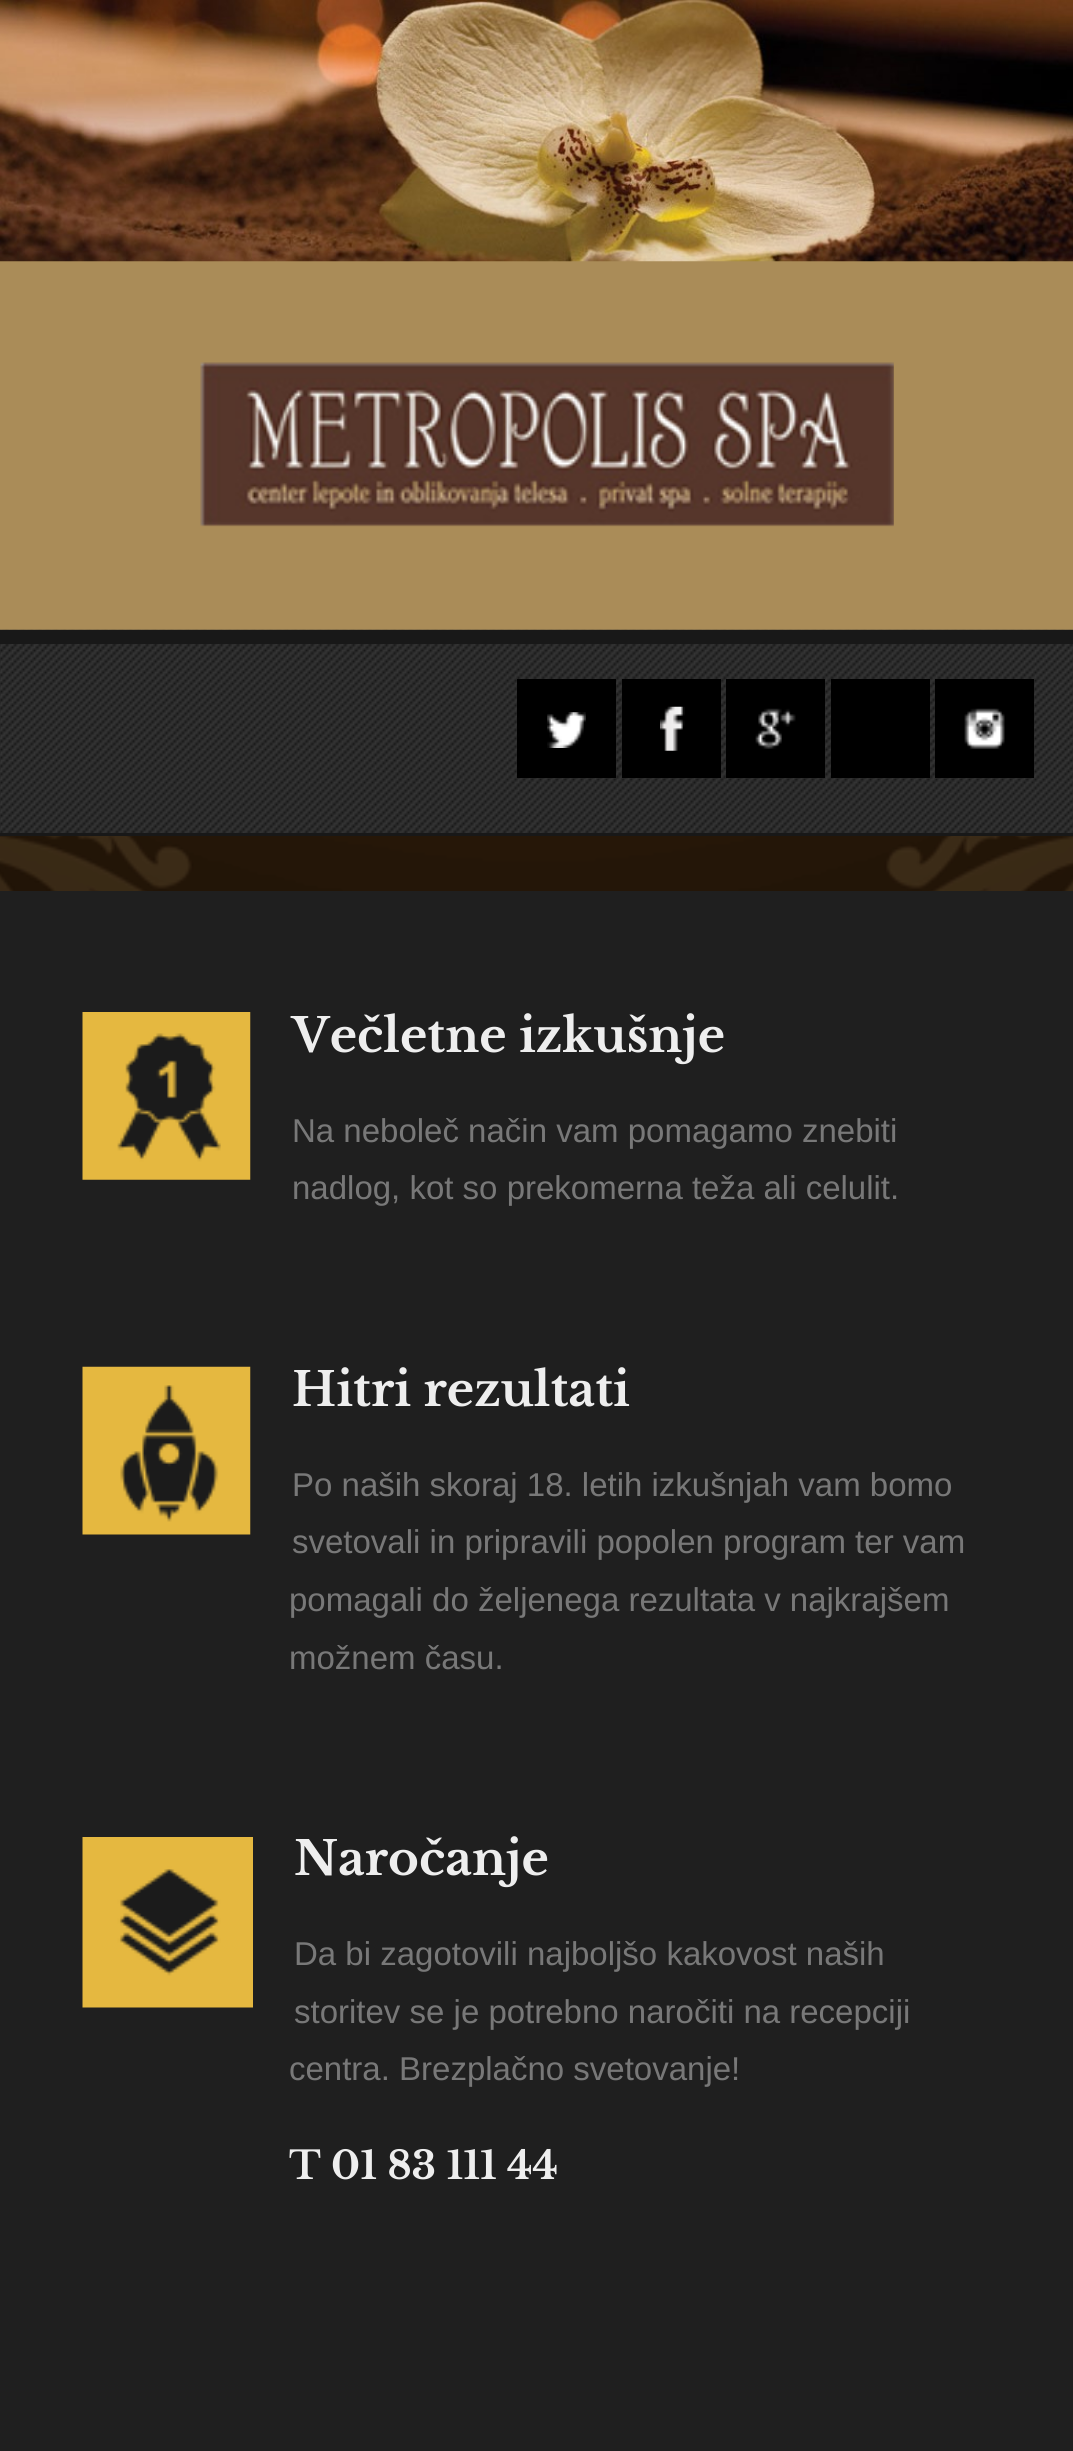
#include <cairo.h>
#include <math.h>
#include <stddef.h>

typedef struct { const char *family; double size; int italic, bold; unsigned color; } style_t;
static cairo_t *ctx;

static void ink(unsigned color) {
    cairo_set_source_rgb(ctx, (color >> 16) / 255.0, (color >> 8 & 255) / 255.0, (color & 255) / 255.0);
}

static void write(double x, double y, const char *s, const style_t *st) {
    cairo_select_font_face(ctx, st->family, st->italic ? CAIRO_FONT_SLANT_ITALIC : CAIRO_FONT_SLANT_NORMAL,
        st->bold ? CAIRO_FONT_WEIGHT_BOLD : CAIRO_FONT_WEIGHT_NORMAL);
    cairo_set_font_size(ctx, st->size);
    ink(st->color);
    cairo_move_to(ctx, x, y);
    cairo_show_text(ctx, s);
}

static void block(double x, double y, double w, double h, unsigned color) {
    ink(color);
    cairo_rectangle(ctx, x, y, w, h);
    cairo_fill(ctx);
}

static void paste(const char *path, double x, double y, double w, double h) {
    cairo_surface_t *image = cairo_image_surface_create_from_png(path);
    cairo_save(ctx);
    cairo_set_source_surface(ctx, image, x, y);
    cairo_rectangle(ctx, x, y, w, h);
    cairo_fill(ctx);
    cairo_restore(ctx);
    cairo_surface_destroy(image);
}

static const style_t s1 = {"Libre Baskerville", 46.75, 0, 1, 0xeeeeee};
static const style_t s2 = {"Liberation Sans", 33, 0, 0, 0x787878};
static const style_t s3 = {"Libre Baskerville", 38.5, 0, 1, 0xeeeeee};

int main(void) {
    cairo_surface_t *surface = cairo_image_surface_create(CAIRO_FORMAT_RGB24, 1073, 2451);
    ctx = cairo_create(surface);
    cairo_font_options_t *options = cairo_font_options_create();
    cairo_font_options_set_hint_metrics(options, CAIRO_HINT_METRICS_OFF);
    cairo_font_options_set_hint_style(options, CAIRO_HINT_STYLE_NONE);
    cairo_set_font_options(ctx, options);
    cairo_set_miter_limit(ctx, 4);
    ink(0xffffff);
    cairo_paint(ctx);
    paste("pic1.png", 0, 836, 1073, 55);
    block(0, 261, 1073, 369, 0xaa8c58);
    paste("pic2.png", 0, 0, 1073, 262);
    paste("pic3.png", 200, 362, 694, 165);
    paste("pic4.png", 0, 629, 1073, 204);
    block(0, 630, 1073, 14, 0x181818);
    block(0, 833, 1073, 3, 0x181818);
    block(517, 679, 99, 99, 0x000000);
    paste("pic5.png", 547, 712, 39, 36);
    block(622, 679, 99, 99, 0x000000);
    paste("pic6.png", 660, 706, 25, 45);
    block(726, 679, 99, 99, 0x000000);
    paste("pic7.png", 755, 708, 41, 41);
    block(831, 679, 99, 99, 0x000000);
    block(935, 679, 99, 99, 0x000000);
    paste("pic8.png", 964, 708, 41, 41);
    block(0, 891, 1073, 1560, 0x1f1f1f);
    paste("pic9.png", 82, 1012, 169, 168);
    write(292, 1052, "Večletne izkušnje", &s1);
    write(292, 1142, "Na neboleč način vam pomagamo znebiti", &s2);
    write(292, 1199, "nadlog, kot so prekomerna teža ali celulit.", &s2);
    paste("pic10.png", 82, 1366, 169, 169);
    write(292, 1406, "Hitri rezultati", &s1);
    write(292, 1496, "Po naših skoraj 18. letih izkušnjah vam bomo", &s2);
    write(292, 1553, "svetovali in pripravili popolen program ter vam", &s2);
    write(289, 1611, "pomagali do željenega rezultata v najkrajšem", &s2);
    write(289, 1669, "možnem času.", &s2);
    paste("pic11.png", 82, 1837, 171, 171);
    write(294, 1875, "Naročanje", &s1);
    write(294, 1965, "Da bi zagotovili najboljšo kakovost naših", &s2);
    write(294, 2023, "storitev se je potrebno naročiti na recepciji", &s2);
    write(289, 2080, "centra. Brezplačno svetovanje!", &s2);
    write(289, 2179, "T 01 83 111 44", &s3);
    cairo_surface_write_to_png(surface, "screenshot.png");
    cairo_font_options_destroy(options);
    cairo_destroy(ctx);
    cairo_surface_destroy(surface);
    return 0;
}
